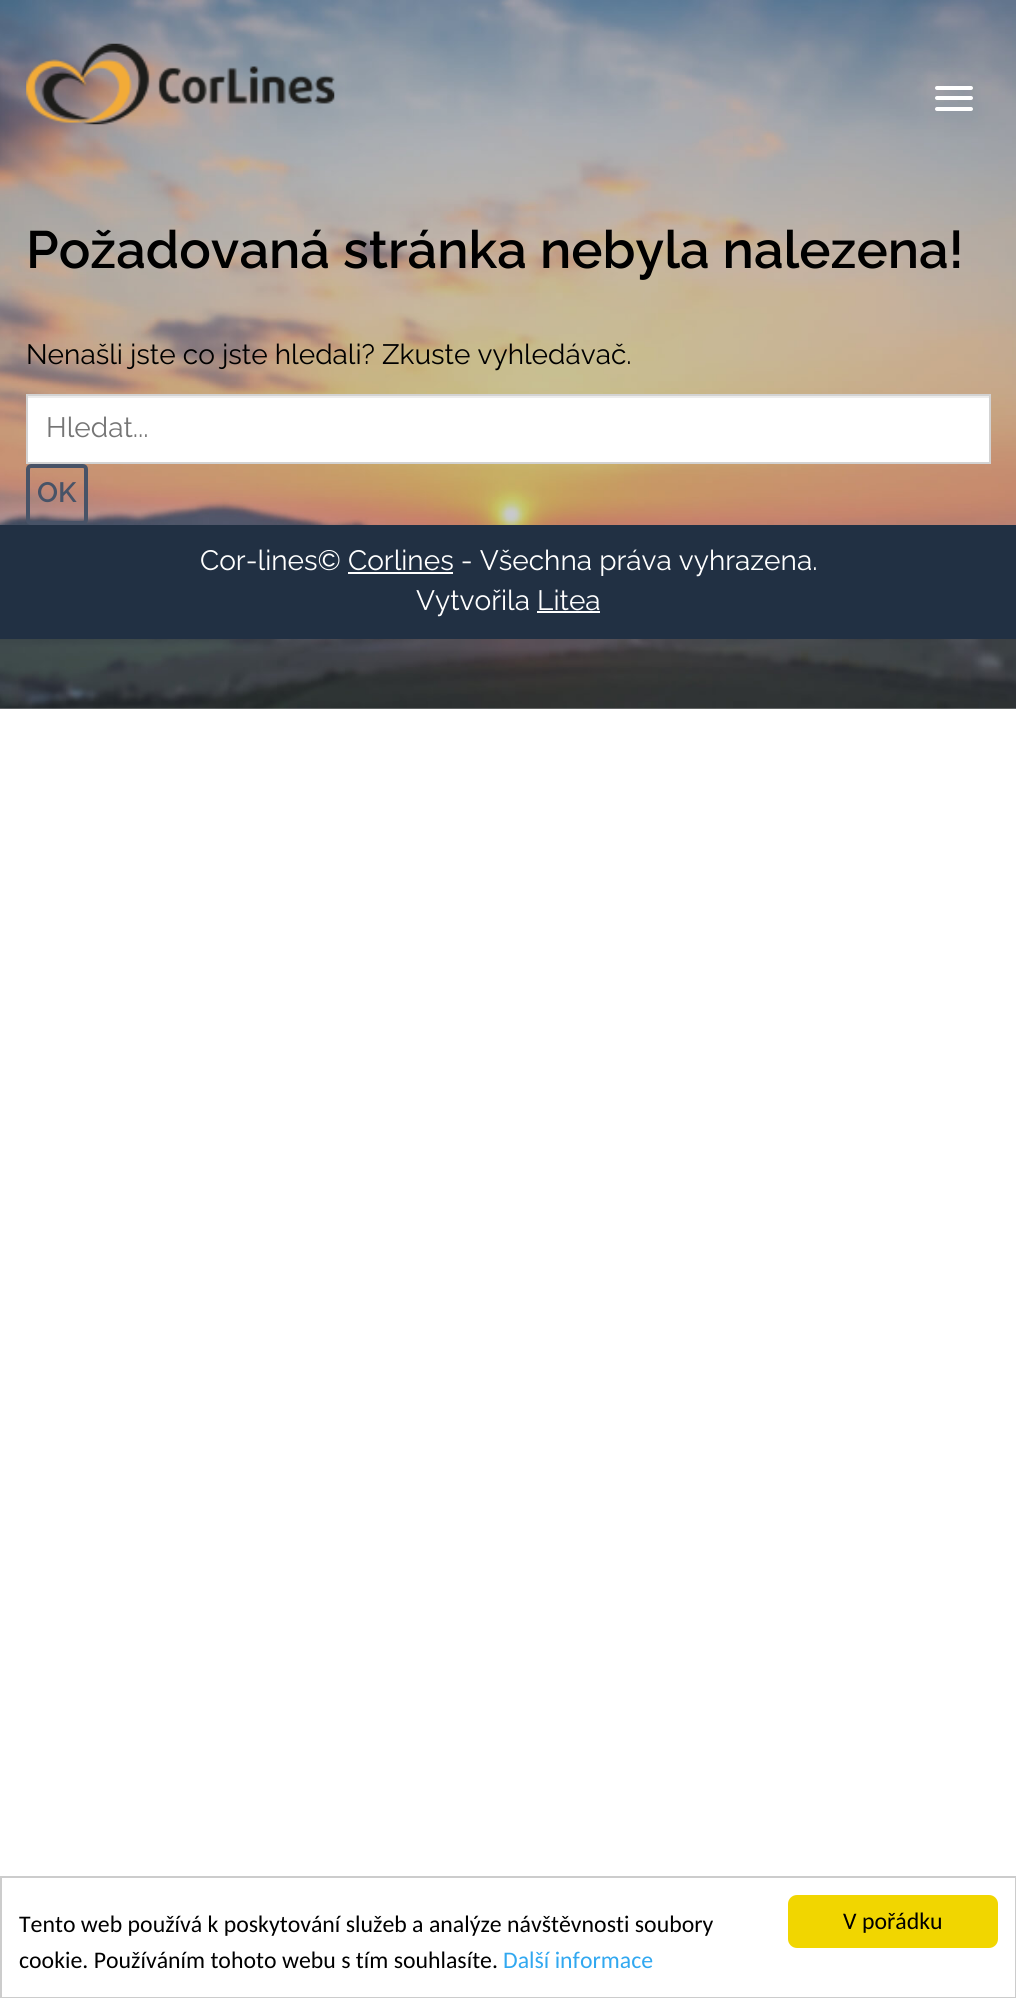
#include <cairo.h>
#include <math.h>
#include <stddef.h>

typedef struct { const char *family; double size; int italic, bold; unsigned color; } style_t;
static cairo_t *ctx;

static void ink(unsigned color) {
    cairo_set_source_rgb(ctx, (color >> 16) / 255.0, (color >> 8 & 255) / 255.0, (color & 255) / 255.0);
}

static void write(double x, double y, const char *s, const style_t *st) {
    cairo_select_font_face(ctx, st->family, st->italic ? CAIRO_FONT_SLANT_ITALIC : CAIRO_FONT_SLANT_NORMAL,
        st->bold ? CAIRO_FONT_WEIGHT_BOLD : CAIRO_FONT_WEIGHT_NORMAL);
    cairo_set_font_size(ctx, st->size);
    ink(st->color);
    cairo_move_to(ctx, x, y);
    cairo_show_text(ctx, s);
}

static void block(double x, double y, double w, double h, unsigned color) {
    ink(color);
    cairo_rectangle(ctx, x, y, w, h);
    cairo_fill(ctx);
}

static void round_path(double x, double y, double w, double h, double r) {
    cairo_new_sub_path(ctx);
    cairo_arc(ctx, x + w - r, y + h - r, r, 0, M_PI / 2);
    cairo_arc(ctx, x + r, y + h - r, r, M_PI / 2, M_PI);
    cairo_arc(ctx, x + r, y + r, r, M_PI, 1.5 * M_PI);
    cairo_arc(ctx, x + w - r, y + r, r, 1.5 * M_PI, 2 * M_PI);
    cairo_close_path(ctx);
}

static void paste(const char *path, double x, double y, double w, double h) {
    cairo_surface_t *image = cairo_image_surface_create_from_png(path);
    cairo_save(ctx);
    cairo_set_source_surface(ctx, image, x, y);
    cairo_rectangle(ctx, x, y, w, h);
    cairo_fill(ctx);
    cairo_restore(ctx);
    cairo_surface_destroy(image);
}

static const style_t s1 = {"Raleway SemiBold", 52.5, 0, 0, 0x000000};
static const style_t s2 = {"Raleway", 28, 0, 0, 0x000000};
static const style_t s3 = {"Raleway", 28, 0, 0, 0x757575};
static const style_t s4 = {"Raleway SemiBold", 28, 0, 0, 0x485367};
static const style_t s5 = {"Raleway", 28, 0, 0, 0xffffff};
static const style_t s6 = {"Carlito", 23.8, 0, 0, 0x000000};
static const style_t s7 = {"Carlito", 23.8, 0, 0, 0x31a8f0};

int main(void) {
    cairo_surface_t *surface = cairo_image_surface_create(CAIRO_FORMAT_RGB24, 1016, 1998);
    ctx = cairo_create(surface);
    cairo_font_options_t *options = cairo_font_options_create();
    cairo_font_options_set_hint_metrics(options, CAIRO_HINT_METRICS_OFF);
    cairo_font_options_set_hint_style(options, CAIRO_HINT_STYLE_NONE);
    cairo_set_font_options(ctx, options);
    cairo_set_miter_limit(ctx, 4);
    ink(0xffffff);
    cairo_paint(ctx);
    paste("pic1.png", 0, 0, 1016, 709);
    paste("pic2.png", 26, 43, 309, 82);
    ink(0xffffff);
    round_path(935, 86, 38, 4, 2);
    cairo_fill(ctx);
    round_path(935, 96, 38, 4, 2);
    cairo_fill(ctx);
    round_path(935, 107, 38, 4, 2);
    cairo_fill(ctx);
    write(26, 268, "Požadovaná stránka nebyla nalezena!", &s1);
    write(26, 364, "Nenašli jste co jste hledali? Zkuste vyhledávač.", &s2);
    block(28, 398, 961, 64, 0xffffff);
    block(28, 396, 961, 2, 0xececec);
    cairo_rectangle(ctx, 27, 395, 963, 68);
    ink(0xd3d3d3);
    cairo_stroke(ctx);
    write(46, 437, "Hledat...", &s3);
    round_path(28, 466, 58, 57, 3);
    ink(0x485367);
    cairo_set_line_width(ctx, 4);
    cairo_stroke(ctx);
    write(37, 502, "OK", &s4);
    block(0, 525, 1016, 114, 0x213043);
    write(200, 570, "Cor-lines© Corlines - Všechna práva vyhrazena.", &s5);
    block(348, 572, 105, 2, 0xffffff);
    write(416, 610, "Vytvořila Litea", &s5);
    block(537, 611, 63, 2, 0xffffff);
    cairo_rectangle(ctx, 1, 1877, 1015, 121);
    ink(0xcccccc);
    cairo_set_line_width(ctx, 2);
    cairo_stroke(ctx);
    write(19, 1932, "Tento web používá k poskytování služeb a analýze návštěvnosti soubory", &s6);
    write(19, 1968, "cookie. Používáním tohoto webu s tím souhlasíte.", &s6);
    write(503, 1968, "Další informace", &s7);
    ink(0xf1d600);
    round_path(788, 1895, 210, 53, 9);
    cairo_fill(ctx);
    write(843, 1929, "V pořádku", &s6);
    cairo_surface_write_to_png(surface, "screenshot.png");
    cairo_font_options_destroy(options);
    cairo_destroy(ctx);
    cairo_surface_destroy(surface);
    return 0;
}
